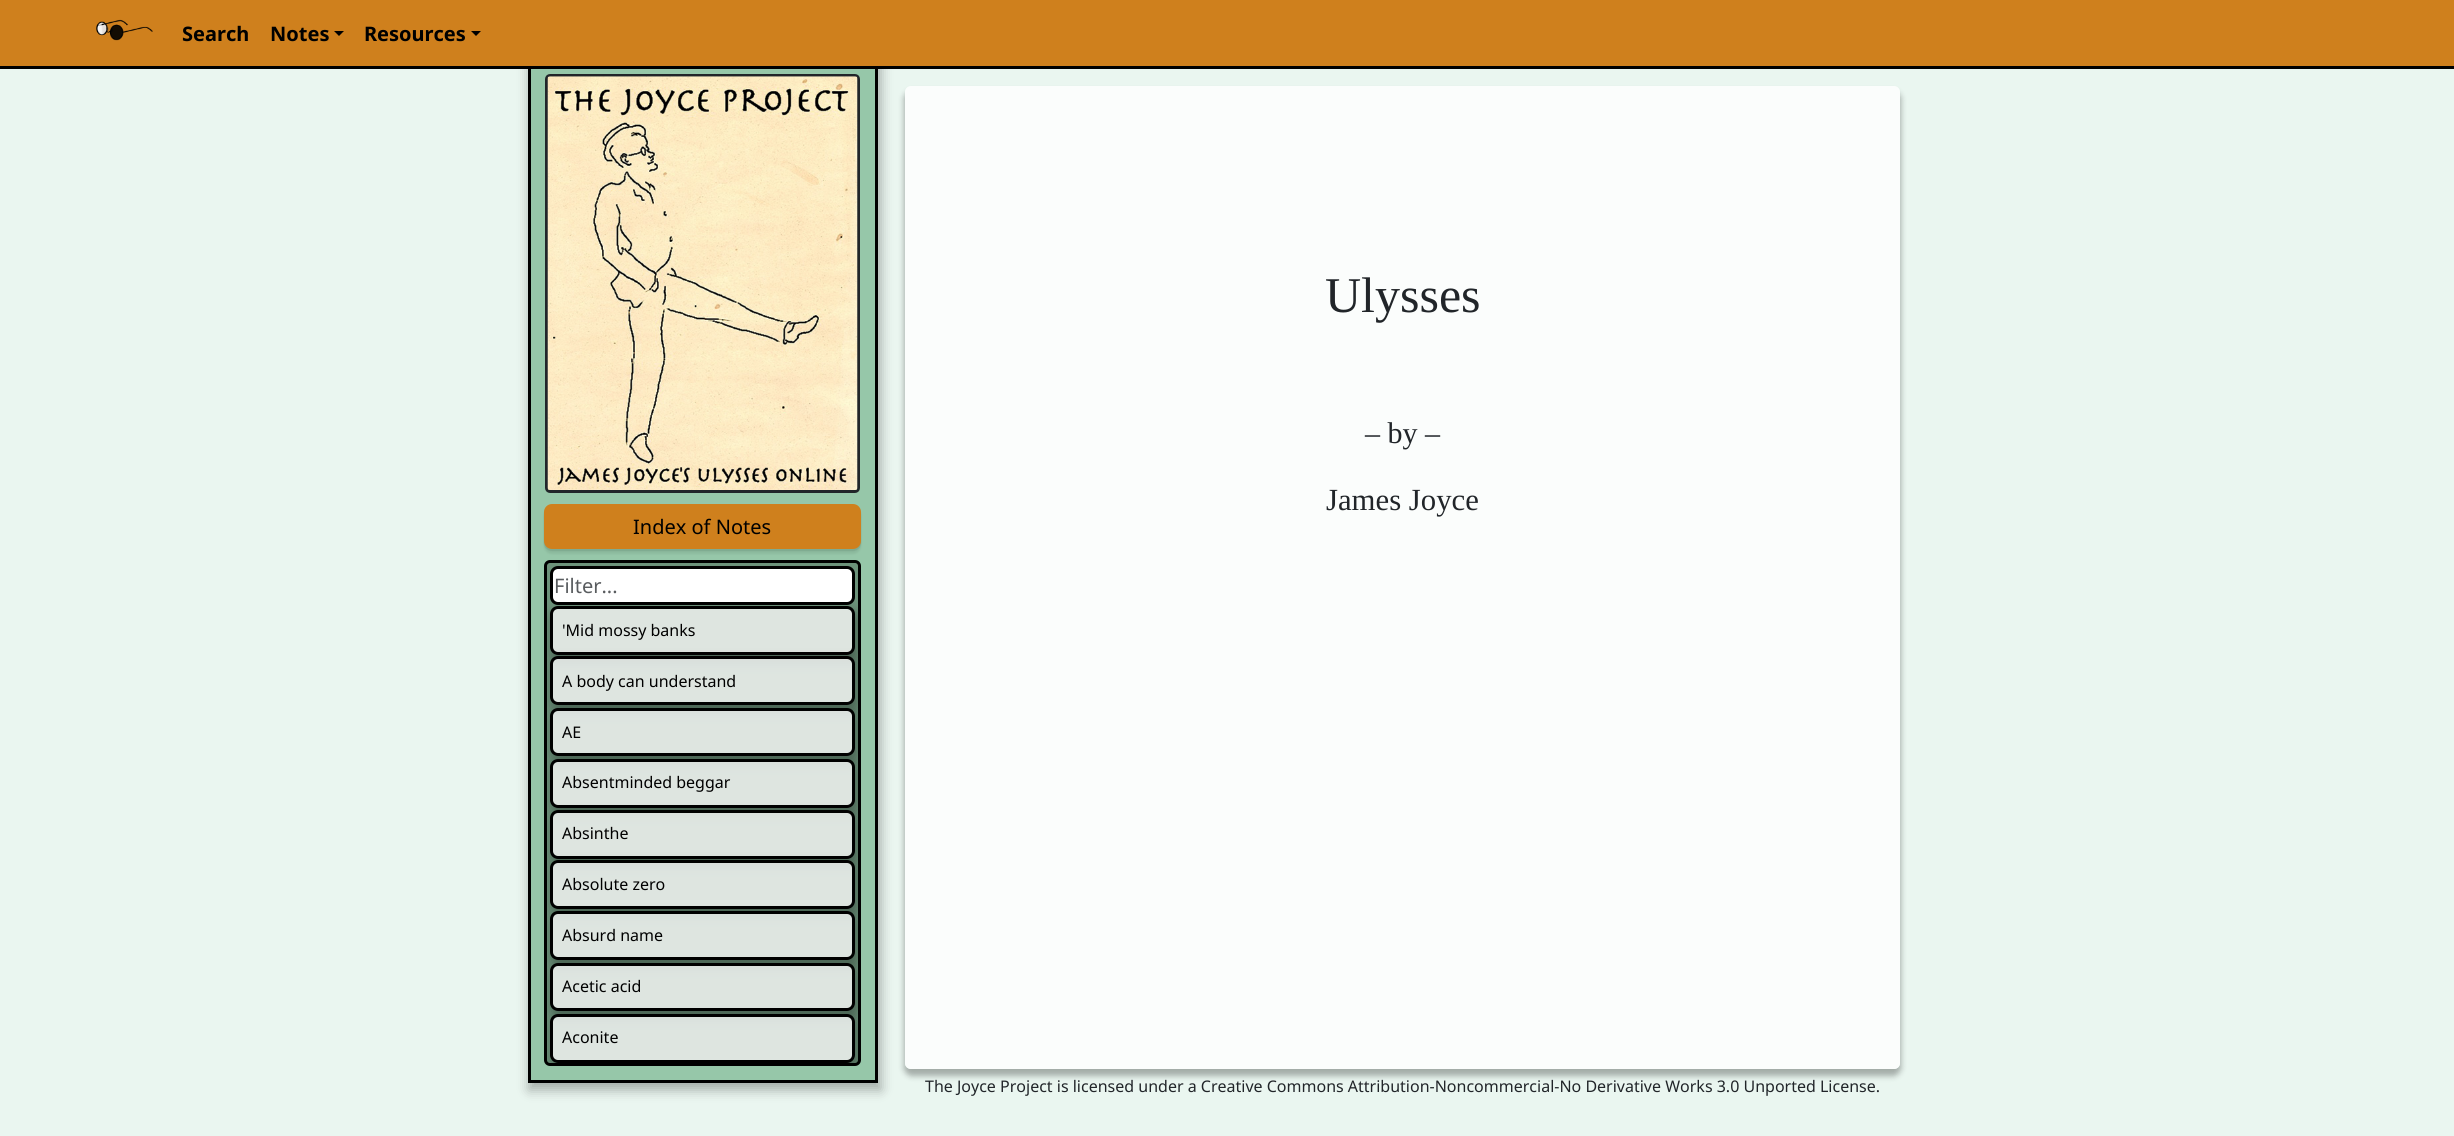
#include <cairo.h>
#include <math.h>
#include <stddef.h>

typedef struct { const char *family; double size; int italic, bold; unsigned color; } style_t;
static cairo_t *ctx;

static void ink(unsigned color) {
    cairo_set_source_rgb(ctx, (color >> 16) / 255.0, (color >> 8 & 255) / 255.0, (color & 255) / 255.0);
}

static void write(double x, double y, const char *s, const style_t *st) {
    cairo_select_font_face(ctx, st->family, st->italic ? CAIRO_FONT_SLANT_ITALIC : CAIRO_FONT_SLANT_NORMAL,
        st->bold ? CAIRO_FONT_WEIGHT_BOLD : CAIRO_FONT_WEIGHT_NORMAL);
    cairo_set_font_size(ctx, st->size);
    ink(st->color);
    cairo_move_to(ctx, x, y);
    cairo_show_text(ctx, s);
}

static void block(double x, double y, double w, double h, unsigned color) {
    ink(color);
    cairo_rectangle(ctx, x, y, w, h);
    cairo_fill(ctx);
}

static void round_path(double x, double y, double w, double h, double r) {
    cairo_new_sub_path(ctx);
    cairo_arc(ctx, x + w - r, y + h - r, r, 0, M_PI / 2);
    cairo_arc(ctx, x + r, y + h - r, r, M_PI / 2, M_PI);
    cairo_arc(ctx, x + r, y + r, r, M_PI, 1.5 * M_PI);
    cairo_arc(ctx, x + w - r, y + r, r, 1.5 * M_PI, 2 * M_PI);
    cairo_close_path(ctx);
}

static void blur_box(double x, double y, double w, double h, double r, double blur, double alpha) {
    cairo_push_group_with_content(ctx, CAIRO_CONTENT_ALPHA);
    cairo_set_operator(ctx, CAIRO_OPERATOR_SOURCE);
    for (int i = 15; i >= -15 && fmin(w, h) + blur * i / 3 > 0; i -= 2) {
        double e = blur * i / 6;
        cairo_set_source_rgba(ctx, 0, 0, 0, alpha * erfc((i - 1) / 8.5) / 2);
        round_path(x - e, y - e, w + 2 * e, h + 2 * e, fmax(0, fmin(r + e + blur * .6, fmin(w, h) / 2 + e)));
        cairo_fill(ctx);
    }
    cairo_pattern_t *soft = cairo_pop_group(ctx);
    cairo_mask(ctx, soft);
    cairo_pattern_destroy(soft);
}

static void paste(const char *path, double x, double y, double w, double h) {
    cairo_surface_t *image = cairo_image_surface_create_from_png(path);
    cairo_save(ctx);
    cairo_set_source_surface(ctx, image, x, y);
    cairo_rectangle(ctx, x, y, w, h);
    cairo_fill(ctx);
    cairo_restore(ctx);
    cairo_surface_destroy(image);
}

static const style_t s1 = {"Noto Sans", 20, 0, 1, 0x000000};
static const style_t s2 = {"Noto Sans", 20, 0, 0, 0x000000};
static const style_t s3 = {"Noto Sans", 20, 0, 0, 0x595c5f};
static const style_t s4 = {"Noto Sans", 16, 0, 0, 0x000000};
static const style_t s5 = {"Liberation Serif", 50, 0, 0, 0x212529};
static const style_t s6 = {"Liberation Serif", 30, 0, 0, 0x212529};
static const style_t s7 = {"Liberation Serif", 30.75, 0, 0, 0x212529};
static const style_t s8 = {"Noto Sans", 16, 0, 0, 0x212529};

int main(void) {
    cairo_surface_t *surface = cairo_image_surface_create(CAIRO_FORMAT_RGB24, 2454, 1136);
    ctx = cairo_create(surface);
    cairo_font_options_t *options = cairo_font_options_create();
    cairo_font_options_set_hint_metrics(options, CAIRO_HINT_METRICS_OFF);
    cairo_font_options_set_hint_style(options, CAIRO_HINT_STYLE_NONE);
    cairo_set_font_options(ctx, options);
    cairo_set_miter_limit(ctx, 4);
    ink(0xeaf6f0);
    cairo_paint(ctx);
    ink(0x000000);
    blur_box(529, 63, 352, 1027, 0, 6, 0.3);
    block(531, 69, 344, 1011, 0x96c7a9);
    cairo_rectangle(ctx, 529.5, 59.5, 347, 1022);
    ink(0x000000);
    cairo_set_line_width(ctx, 3);
    cairo_stroke(ctx);
    block(0, 0, 2454, 66, 0xcf801d);
    block(0, 66, 2454, 3, 0x000000);
    paste("pic1.png", 96, 19, 57, 22);
    write(182, 41, "Search", &s1);
    write(270, 41, "Notes", &s1);
    cairo_new_path(ctx);
    cairo_move_to(ctx, 334, 31);
    cairo_line_to(ctx, 344, 31);
    cairo_line_to(ctx, 339, 36);
    cairo_close_path(ctx);
    cairo_fill(ctx);
    write(364, 41, "Resources", &s1);
    cairo_new_path(ctx);
    cairo_move_to(ctx, 471, 31);
    cairo_line_to(ctx, 481, 31);
    cairo_line_to(ctx, 476, 36);
    cairo_close_path(ctx);
    cairo_fill(ctx);
    round_path(546.5, 75.5, 312, 416, 3.5);
    ink(0x212529);
    cairo_stroke(ctx);
    paste("pic2.png", 547, 76, 311, 414);
    ink(0x61856e);
    blur_box(544, 509, 317, 45, 8, 1, 0.2);
    blur_box(544, 506, 317, 45, 8, 0.5, 0.3);
    ink(0xcf801d);
    round_path(544, 504, 317, 45, 8);
    cairo_fill(ctx);
    write(633, 534, "Index of Notes", &s2);
    ink(0x6c927a);
    round_path(545.5, 561.5, 314, 503, 4.5);
    cairo_fill_preserve(ctx);
    ink(0x000000);
    cairo_stroke(ctx);
    cairo_save(ctx);
    round_path(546, 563, 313, 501, 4);
    cairo_clip(ctx);
    cairo_set_fill_rule(ctx, CAIRO_FILL_RULE_EVEN_ODD);
    cairo_new_path(ctx);
    cairo_move_to(ctx, 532, 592);
    cairo_line_to(ctx, 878, 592);
    cairo_line_to(ctx, 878, 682);
    cairo_line_to(ctx, 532, 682);
    cairo_close_path(ctx);
    cairo_move_to(ctx, 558, 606);
    cairo_line_to(ctx, 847, 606);
    cairo_curve_to(ctx, 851.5, 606, 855, 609.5, 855, 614);
    cairo_line_to(ctx, 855, 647);
    cairo_curve_to(ctx, 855, 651.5, 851.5, 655, 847, 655);
    cairo_line_to(ctx, 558, 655);
    cairo_curve_to(ctx, 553.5, 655, 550, 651.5, 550, 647);
    cairo_line_to(ctx, 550, 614);
    cairo_curve_to(ctx, 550, 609.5, 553.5, 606, 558, 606);
    cairo_close_path(ctx);
    cairo_clip(ctx);
    ink(0x000000);
    blur_box(551, 611, 308, 52, 9, 6, 0.3);
    cairo_restore(ctx);
    ink(0xffffff);
    round_path(551.5, 567.5, 302, 36, 6.5);
    cairo_fill_preserve(ctx);
    ink(0x000000);
    cairo_stroke(ctx);
    write(554, 593, "Filter...", &s3);
    cairo_set_source_rgba(ctx, 0.98, 0.98, 0.98, 0.8);
    round_path(551.5, 607.5, 302, 46, 6.5);
    cairo_fill_preserve(ctx);
    ink(0x000000);
    cairo_stroke(ctx);
    write(562, 636, "'Mid mossy banks", &s4);
    cairo_save(ctx);
    round_path(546, 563, 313, 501, 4);
    cairo_clip(ctx);
    cairo_set_fill_rule(ctx, CAIRO_FILL_RULE_EVEN_ODD);
    cairo_new_path(ctx);
    cairo_move_to(ctx, 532, 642);
    cairo_line_to(ctx, 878, 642);
    cairo_line_to(ctx, 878, 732);
    cairo_line_to(ctx, 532, 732);
    cairo_close_path(ctx);
    cairo_move_to(ctx, 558, 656);
    cairo_line_to(ctx, 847, 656);
    cairo_curve_to(ctx, 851.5, 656, 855, 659.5, 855, 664);
    cairo_line_to(ctx, 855, 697);
    cairo_curve_to(ctx, 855, 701.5, 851.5, 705, 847, 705);
    cairo_line_to(ctx, 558, 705);
    cairo_curve_to(ctx, 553.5, 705, 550, 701.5, 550, 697);
    cairo_line_to(ctx, 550, 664);
    cairo_curve_to(ctx, 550, 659.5, 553.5, 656, 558, 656);
    cairo_close_path(ctx);
    cairo_clip(ctx);
    ink(0x000000);
    blur_box(551, 661, 308, 52, 9, 6, 0.3);
    cairo_restore(ctx);
    cairo_set_source_rgba(ctx, 0.98, 0.98, 0.98, 0.8);
    round_path(551.5, 657.5, 302, 46, 6.5);
    cairo_fill_preserve(ctx);
    ink(0x000000);
    cairo_stroke(ctx);
    write(562, 687, "A body can understand", &s4);
    cairo_save(ctx);
    round_path(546, 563, 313, 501, 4);
    cairo_clip(ctx);
    cairo_set_fill_rule(ctx, CAIRO_FILL_RULE_EVEN_ODD);
    cairo_new_path(ctx);
    cairo_move_to(ctx, 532, 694);
    cairo_line_to(ctx, 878, 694);
    cairo_line_to(ctx, 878, 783);
    cairo_line_to(ctx, 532, 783);
    cairo_close_path(ctx);
    cairo_move_to(ctx, 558, 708);
    cairo_line_to(ctx, 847, 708);
    cairo_curve_to(ctx, 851.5, 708, 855, 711.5, 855, 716);
    cairo_line_to(ctx, 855, 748);
    cairo_curve_to(ctx, 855, 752.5, 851.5, 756, 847, 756);
    cairo_line_to(ctx, 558, 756);
    cairo_curve_to(ctx, 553.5, 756, 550, 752.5, 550, 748);
    cairo_line_to(ctx, 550, 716);
    cairo_curve_to(ctx, 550, 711.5, 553.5, 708, 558, 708);
    cairo_close_path(ctx);
    cairo_clip(ctx);
    ink(0x000000);
    blur_box(551, 713, 308, 51, 9, 6, 0.3);
    cairo_restore(ctx);
    cairo_set_source_rgba(ctx, 0.98, 0.98, 0.98, 0.8);
    round_path(551.5, 709.5, 302, 45, 6.5);
    cairo_fill_preserve(ctx);
    ink(0x000000);
    cairo_stroke(ctx);
    write(562, 738, "AE", &s4);
    cairo_save(ctx);
    round_path(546, 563, 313, 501, 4);
    cairo_clip(ctx);
    cairo_set_fill_rule(ctx, CAIRO_FILL_RULE_EVEN_ODD);
    cairo_new_path(ctx);
    cairo_move_to(ctx, 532, 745);
    cairo_line_to(ctx, 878, 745);
    cairo_line_to(ctx, 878, 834);
    cairo_line_to(ctx, 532, 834);
    cairo_close_path(ctx);
    cairo_move_to(ctx, 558, 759);
    cairo_line_to(ctx, 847, 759);
    cairo_curve_to(ctx, 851.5, 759, 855, 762.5, 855, 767);
    cairo_line_to(ctx, 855, 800);
    cairo_curve_to(ctx, 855, 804.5, 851.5, 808, 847, 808);
    cairo_line_to(ctx, 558, 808);
    cairo_curve_to(ctx, 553.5, 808, 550, 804.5, 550, 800);
    cairo_line_to(ctx, 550, 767);
    cairo_curve_to(ctx, 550, 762.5, 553.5, 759, 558, 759);
    cairo_close_path(ctx);
    cairo_clip(ctx);
    ink(0x000000);
    blur_box(551, 764, 308, 51, 9, 6, 0.3);
    cairo_restore(ctx);
    cairo_set_source_rgba(ctx, 0.98, 0.98, 0.98, 0.8);
    round_path(551.5, 760.5, 302, 46, 6.5);
    cairo_fill_preserve(ctx);
    ink(0x000000);
    cairo_stroke(ctx);
    write(562, 788, "Absentminded beggar", &s4);
    cairo_save(ctx);
    round_path(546, 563, 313, 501, 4);
    cairo_clip(ctx);
    cairo_set_fill_rule(ctx, CAIRO_FILL_RULE_EVEN_ODD);
    cairo_new_path(ctx);
    cairo_move_to(ctx, 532, 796);
    cairo_line_to(ctx, 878, 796);
    cairo_line_to(ctx, 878, 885);
    cairo_line_to(ctx, 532, 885);
    cairo_close_path(ctx);
    cairo_move_to(ctx, 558, 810);
    cairo_line_to(ctx, 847, 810);
    cairo_curve_to(ctx, 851.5, 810, 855, 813.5, 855, 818);
    cairo_line_to(ctx, 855, 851);
    cairo_curve_to(ctx, 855, 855.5, 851.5, 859, 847, 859);
    cairo_line_to(ctx, 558, 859);
    cairo_curve_to(ctx, 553.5, 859, 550, 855.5, 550, 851);
    cairo_line_to(ctx, 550, 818);
    cairo_curve_to(ctx, 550, 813.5, 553.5, 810, 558, 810);
    cairo_close_path(ctx);
    cairo_clip(ctx);
    ink(0x000000);
    blur_box(551, 815, 308, 51, 9, 6, 0.3);
    cairo_restore(ctx);
    cairo_set_source_rgba(ctx, 0.98, 0.98, 0.98, 0.8);
    round_path(551.5, 811.5, 302, 46, 6.5);
    cairo_fill_preserve(ctx);
    ink(0x000000);
    cairo_stroke(ctx);
    write(562, 839, "Absinthe", &s4);
    cairo_save(ctx);
    round_path(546, 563, 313, 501, 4);
    cairo_clip(ctx);
    cairo_set_fill_rule(ctx, CAIRO_FILL_RULE_EVEN_ODD);
    cairo_new_path(ctx);
    cairo_move_to(ctx, 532, 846);
    cairo_line_to(ctx, 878, 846);
    cairo_line_to(ctx, 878, 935);
    cairo_line_to(ctx, 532, 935);
    cairo_close_path(ctx);
    cairo_move_to(ctx, 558, 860);
    cairo_line_to(ctx, 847, 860);
    cairo_curve_to(ctx, 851.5, 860, 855, 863.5, 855, 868);
    cairo_line_to(ctx, 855, 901);
    cairo_curve_to(ctx, 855, 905.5, 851.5, 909, 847, 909);
    cairo_line_to(ctx, 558, 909);
    cairo_curve_to(ctx, 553.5, 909, 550, 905.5, 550, 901);
    cairo_line_to(ctx, 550, 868);
    cairo_curve_to(ctx, 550, 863.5, 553.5, 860, 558, 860);
    cairo_close_path(ctx);
    cairo_clip(ctx);
    ink(0x000000);
    blur_box(551, 865, 308, 51, 9, 6, 0.3);
    cairo_restore(ctx);
    cairo_set_source_rgba(ctx, 0.98, 0.98, 0.98, 0.8);
    round_path(551.5, 861.5, 302, 46, 6.5);
    cairo_fill_preserve(ctx);
    ink(0x000000);
    cairo_stroke(ctx);
    write(562, 890, "Absolute zero", &s4);
    cairo_save(ctx);
    round_path(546, 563, 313, 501, 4);
    cairo_clip(ctx);
    cairo_set_fill_rule(ctx, CAIRO_FILL_RULE_EVEN_ODD);
    cairo_new_path(ctx);
    cairo_move_to(ctx, 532, 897);
    cairo_line_to(ctx, 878, 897);
    cairo_line_to(ctx, 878, 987);
    cairo_line_to(ctx, 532, 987);
    cairo_close_path(ctx);
    cairo_move_to(ctx, 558, 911);
    cairo_line_to(ctx, 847, 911);
    cairo_curve_to(ctx, 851.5, 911, 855, 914.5, 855, 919);
    cairo_line_to(ctx, 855, 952);
    cairo_curve_to(ctx, 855, 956.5, 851.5, 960, 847, 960);
    cairo_line_to(ctx, 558, 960);
    cairo_curve_to(ctx, 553.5, 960, 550, 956.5, 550, 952);
    cairo_line_to(ctx, 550, 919);
    cairo_curve_to(ctx, 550, 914.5, 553.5, 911, 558, 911);
    cairo_close_path(ctx);
    cairo_clip(ctx);
    ink(0x000000);
    blur_box(551, 916, 308, 52, 9, 6, 0.3);
    cairo_restore(ctx);
    cairo_set_source_rgba(ctx, 0.98, 0.98, 0.98, 0.8);
    round_path(551.5, 912.5, 302, 46, 6.5);
    cairo_fill_preserve(ctx);
    ink(0x000000);
    cairo_stroke(ctx);
    write(562, 941, "Absurd name", &s4);
    cairo_save(ctx);
    round_path(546, 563, 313, 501, 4);
    cairo_clip(ctx);
    cairo_set_fill_rule(ctx, CAIRO_FILL_RULE_EVEN_ODD);
    cairo_new_path(ctx);
    cairo_move_to(ctx, 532, 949);
    cairo_line_to(ctx, 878, 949);
    cairo_line_to(ctx, 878, 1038);
    cairo_line_to(ctx, 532, 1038);
    cairo_close_path(ctx);
    cairo_move_to(ctx, 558, 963);
    cairo_line_to(ctx, 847, 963);
    cairo_curve_to(ctx, 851.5, 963, 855, 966.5, 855, 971);
    cairo_line_to(ctx, 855, 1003);
    cairo_curve_to(ctx, 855, 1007.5, 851.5, 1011, 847, 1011);
    cairo_line_to(ctx, 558, 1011);
    cairo_curve_to(ctx, 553.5, 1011, 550, 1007.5, 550, 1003);
    cairo_line_to(ctx, 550, 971);
    cairo_curve_to(ctx, 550, 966.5, 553.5, 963, 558, 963);
    cairo_close_path(ctx);
    cairo_clip(ctx);
    ink(0x000000);
    blur_box(551, 968, 308, 51, 9, 6, 0.3);
    cairo_restore(ctx);
    cairo_set_source_rgba(ctx, 0.98, 0.98, 0.98, 0.8);
    round_path(551.5, 964.5, 302, 45, 6.5);
    cairo_fill_preserve(ctx);
    ink(0x000000);
    cairo_stroke(ctx);
    write(562, 992, "Acetic acid", &s4);
    cairo_save(ctx);
    round_path(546, 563, 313, 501, 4);
    cairo_clip(ctx);
    cairo_set_fill_rule(ctx, CAIRO_FILL_RULE_EVEN_ODD);
    cairo_new_path(ctx);
    cairo_move_to(ctx, 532, 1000);
    cairo_line_to(ctx, 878, 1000);
    cairo_line_to(ctx, 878, 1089);
    cairo_line_to(ctx, 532, 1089);
    cairo_close_path(ctx);
    cairo_move_to(ctx, 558, 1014);
    cairo_line_to(ctx, 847, 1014);
    cairo_curve_to(ctx, 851.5, 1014, 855, 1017.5, 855, 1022);
    cairo_line_to(ctx, 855, 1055);
    cairo_curve_to(ctx, 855, 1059.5, 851.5, 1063, 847, 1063);
    cairo_line_to(ctx, 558, 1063);
    cairo_curve_to(ctx, 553.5, 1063, 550, 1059.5, 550, 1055);
    cairo_line_to(ctx, 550, 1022);
    cairo_curve_to(ctx, 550, 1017.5, 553.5, 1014, 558, 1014);
    cairo_close_path(ctx);
    cairo_clip(ctx);
    ink(0x000000);
    blur_box(551, 1019, 308, 51, 9, 6, 0.3);
    cairo_restore(ctx);
    cairo_set_source_rgba(ctx, 0.98, 0.98, 0.98, 0.8);
    round_path(551.5, 1015.5, 302, 46, 6.5);
    cairo_fill_preserve(ctx);
    ink(0x000000);
    cairo_stroke(ctx);
    write(562, 1043, "Aconite", &s4);
    cairo_save(ctx);
    cairo_set_fill_rule(ctx, CAIRO_FILL_RULE_EVEN_ODD);
    cairo_new_path(ctx);
    cairo_move_to(ctx, 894, 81);
    cairo_line_to(ctx, 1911, 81);
    cairo_line_to(ctx, 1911, 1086);
    cairo_line_to(ctx, 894, 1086);
    cairo_close_path(ctx);
    cairo_move_to(ctx, 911, 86);
    cairo_line_to(ctx, 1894, 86);
    cairo_curve_to(ctx, 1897.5, 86, 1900, 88.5, 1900, 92);
    cairo_line_to(ctx, 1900, 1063);
    cairo_curve_to(ctx, 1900, 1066.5, 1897.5, 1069, 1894, 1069);
    cairo_line_to(ctx, 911, 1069);
    cairo_curve_to(ctx, 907.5, 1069, 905, 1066.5, 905, 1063);
    cairo_line_to(ctx, 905, 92);
    cairo_curve_to(ctx, 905, 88.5, 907.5, 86, 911, 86);
    cairo_close_path(ctx);
    cairo_clip(ctx);
    ink(0x000000);
    blur_box(904, 91, 997, 985, 8, 3, 0.3);
    cairo_restore(ctx);
    cairo_set_source_rgba(ctx, 1, 1, 1, 0.8);
    round_path(905, 86, 995, 983, 6);
    cairo_fill(ctx);
    write(1325, 312, "Ulysses", &s5);
    write(1365, 443, "– by –", &s6);
    write(1326, 510, "James Joyce", &s7);
    write(925, 1092, "The Joyce Project is licensed under a Creative Commons Attribution-Noncommercial-No Derivative Works 3.0 Unported License.", &s8);
    cairo_surface_write_to_png(surface, "screenshot.png");
    cairo_font_options_destroy(options);
    cairo_destroy(ctx);
    cairo_surface_destroy(surface);
    return 0;
}
